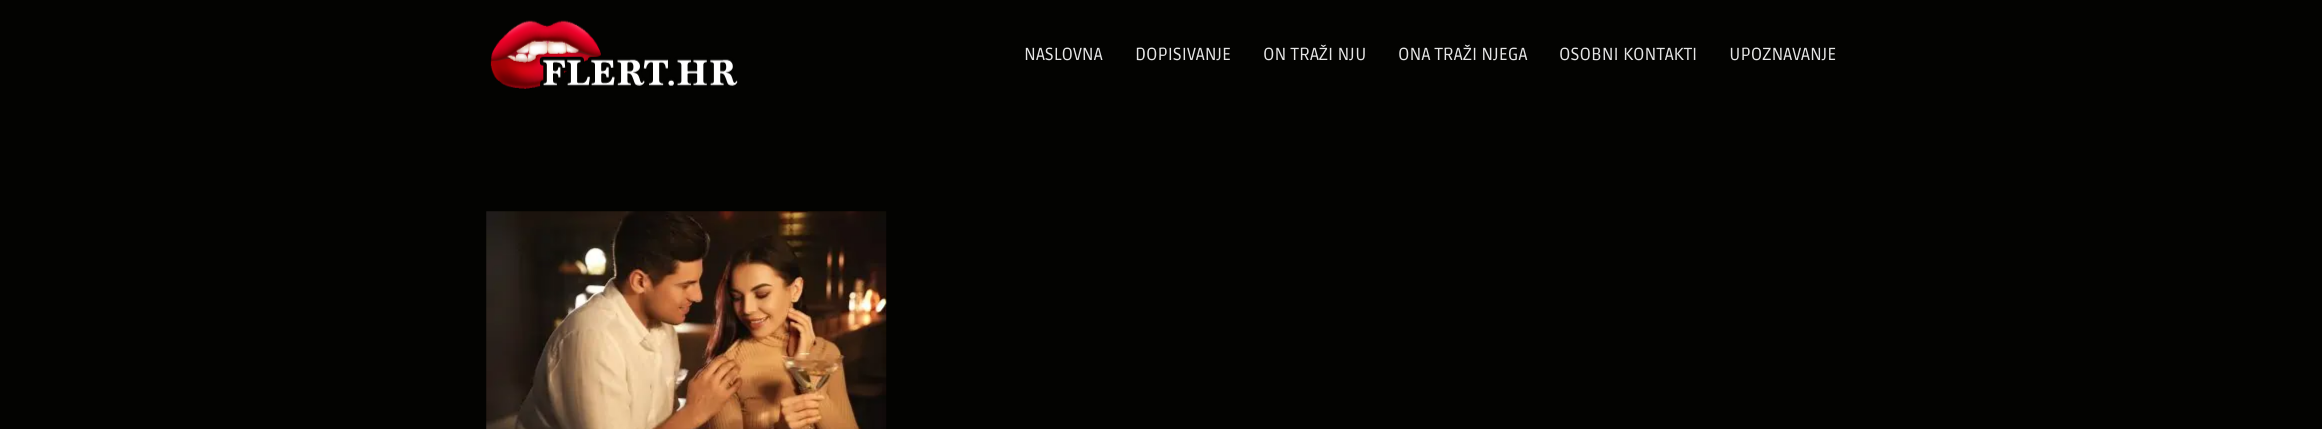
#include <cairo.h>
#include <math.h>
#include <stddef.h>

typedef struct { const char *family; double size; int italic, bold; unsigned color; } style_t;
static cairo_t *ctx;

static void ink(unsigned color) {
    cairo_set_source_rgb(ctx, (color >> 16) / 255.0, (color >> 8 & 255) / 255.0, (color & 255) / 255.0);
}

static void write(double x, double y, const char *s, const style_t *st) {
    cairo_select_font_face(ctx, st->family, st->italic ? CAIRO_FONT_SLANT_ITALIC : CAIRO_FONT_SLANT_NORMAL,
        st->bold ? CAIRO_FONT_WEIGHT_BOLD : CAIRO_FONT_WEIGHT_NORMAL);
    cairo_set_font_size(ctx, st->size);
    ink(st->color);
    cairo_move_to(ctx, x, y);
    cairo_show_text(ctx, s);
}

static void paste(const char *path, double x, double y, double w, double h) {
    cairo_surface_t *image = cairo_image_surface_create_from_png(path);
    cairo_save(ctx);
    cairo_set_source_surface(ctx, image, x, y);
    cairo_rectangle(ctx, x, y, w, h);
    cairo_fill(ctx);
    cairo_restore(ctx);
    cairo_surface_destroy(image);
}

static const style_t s1 = {"Ruda", 17.5, 0, 0, 0xe6e6e6};

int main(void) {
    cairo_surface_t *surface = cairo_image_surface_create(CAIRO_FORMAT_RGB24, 2322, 429);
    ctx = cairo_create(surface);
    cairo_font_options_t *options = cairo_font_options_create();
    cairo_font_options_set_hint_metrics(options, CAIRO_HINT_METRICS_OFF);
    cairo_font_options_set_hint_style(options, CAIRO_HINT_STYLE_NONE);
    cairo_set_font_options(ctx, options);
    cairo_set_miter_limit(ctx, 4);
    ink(0x030301);
    cairo_paint(ctx);
    paste("pic1.png", 490, 20, 248, 69);
    write(1024, 60, "NASLOVNA", &s1);
    write(1135, 60, "DOPISIVANJE", &s1);
    write(1263, 60, "ON TRAŽI NJU", &s1);
    write(1398, 60, "ONA TRAŽI NJEGA", &s1);
    write(1559, 60, "OSOBNI KONTAKTI", &s1);
    write(1729, 60, "UPOZNAVANJE", &s1);
    paste("pic2.png", 486, 211, 401, 218);
    cairo_surface_write_to_png(surface, "screenshot.png");
    cairo_font_options_destroy(options);
    cairo_destroy(ctx);
    cairo_surface_destroy(surface);
    return 0;
}
